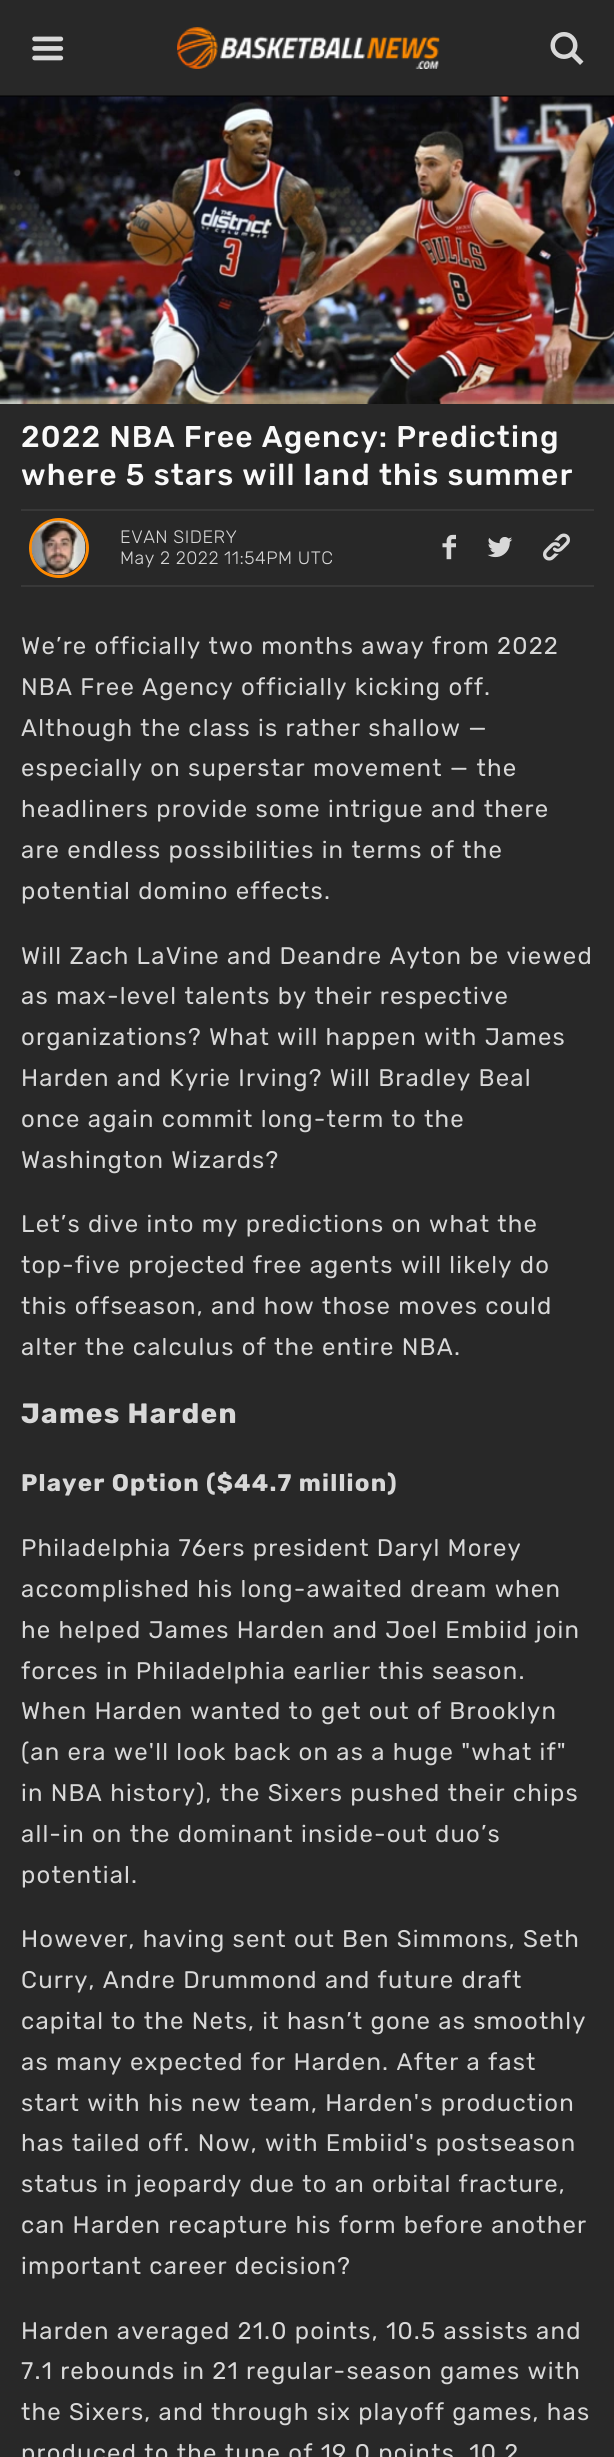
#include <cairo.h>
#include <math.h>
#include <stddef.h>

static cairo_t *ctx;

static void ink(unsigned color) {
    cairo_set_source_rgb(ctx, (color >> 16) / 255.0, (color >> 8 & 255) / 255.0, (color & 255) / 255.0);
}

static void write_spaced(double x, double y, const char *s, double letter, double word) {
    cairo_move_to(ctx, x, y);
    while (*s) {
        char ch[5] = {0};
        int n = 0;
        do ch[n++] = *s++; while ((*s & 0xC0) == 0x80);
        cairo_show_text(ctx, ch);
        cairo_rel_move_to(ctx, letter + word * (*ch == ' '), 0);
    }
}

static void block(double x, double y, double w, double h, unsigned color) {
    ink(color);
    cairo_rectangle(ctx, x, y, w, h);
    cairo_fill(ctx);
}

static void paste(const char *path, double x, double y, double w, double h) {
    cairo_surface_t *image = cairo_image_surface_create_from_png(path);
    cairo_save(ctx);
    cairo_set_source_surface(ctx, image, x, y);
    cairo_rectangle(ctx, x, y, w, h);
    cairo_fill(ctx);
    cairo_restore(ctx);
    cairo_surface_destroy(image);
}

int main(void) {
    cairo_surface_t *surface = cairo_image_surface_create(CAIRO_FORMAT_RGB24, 614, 2457);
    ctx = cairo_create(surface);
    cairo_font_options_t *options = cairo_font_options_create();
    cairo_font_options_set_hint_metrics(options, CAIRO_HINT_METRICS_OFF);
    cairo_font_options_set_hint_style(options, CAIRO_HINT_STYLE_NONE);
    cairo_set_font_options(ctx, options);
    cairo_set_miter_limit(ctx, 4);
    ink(0x282828);
    cairo_paint(ctx);
    paste("pic1.png", 32, 36, 32, 25);
    paste("pic2.png", 177, 27, 263, 42);
    paste("pic3.png", 550, 32, 34, 33);
    paste("pic4.png", 0, 96, 614, 308);
    cairo_set_source_rgba(ctx, 0, 0, 0, 0.5);
    cairo_rectangle(ctx, 0, 95, 614, 2);
    cairo_fill(ctx);
    cairo_select_font_face(ctx, "Rubik Medium", CAIRO_FONT_SLANT_NORMAL, CAIRO_FONT_WEIGHT_NORMAL);
    cairo_set_font_size(ctx, 30);
    ink(0xf9f9f9);
    write_spaced(21, 447, "2022 NBA Free Agency: Predicting", 1.2, 0);
    write_spaced(21, 485, "where 5 stars will land this summer", 1.2, 0);
    block(21, 509, 573, 2, 0x383838);
    block(21, 585, 573, 2, 0x383838);
    cairo_new_path(ctx);
    cairo_arc(ctx, 59, 548, 28.5, 0, 2 * M_PI);
    ink(0xff8a00);
    cairo_set_line_width(ctx, 3);
    cairo_stroke(ctx);
    paste("pic5.png", 31, 520, 55, 55);
    cairo_select_font_face(ctx, "Rubik Light", CAIRO_FONT_SLANT_NORMAL, CAIRO_FONT_WEIGHT_NORMAL);
    cairo_set_font_size(ctx, 18);
    ink(0xd8d8d8);
    write_spaced(120, 543, "EVAN SIDERY", 0.5, 0);
    write_spaced(120, 564, "May 2 2022 11:54PM UTC", 0.5, 0);
    paste("pic6.png", 442, 534, 14, 26);
    paste("pic7.png", 487, 537, 26, 21);
    paste("pic8.png", 543, 533, 27, 28);
    cairo_select_font_face(ctx, "Rubik", CAIRO_FONT_SLANT_NORMAL, CAIRO_FONT_WEIGHT_NORMAL);
    cairo_set_font_size(ctx, 24);
    write_spaced(21, 654, "We’re officially two months away from 2022", 1.2, 0);
    write_spaced(21, 695, "NBA Free Agency officially kicking off.", 1.2, 0);
    write_spaced(21, 736, "Although the class is rather shallow —", 1.2, 0);
    write_spaced(21, 776, "especially on superstar movement — the", 1.2, 0);
    write_spaced(21, 817, "headliners provide some intrigue and there", 1.2, 0);
    write_spaced(21, 858, "are endless possibilities in terms of the", 1.2, 0);
    write_spaced(21, 899, "potential domino effects.", 1.2, 0);
    write_spaced(21, 964, "Will Zach LaVine and Deandre Ayton be viewed", 1.2, 0);
    write_spaced(21, 1004, "as max-level talents by their respective", 1.2, 0);
    write_spaced(21, 1045, "organizations? What will happen with James", 1.2, 0);
    write_spaced(21, 1086, "Harden and Kyrie Irving? Will Bradley Beal", 1.2, 0);
    write_spaced(21, 1127, "once again commit long-term to the", 1.2, 0);
    write_spaced(21, 1168, "Washington Wizards?", 1.2, 0);
    write_spaced(21, 1232, "Let’s dive into my predictions on what the", 1.2, 0);
    write_spaced(21, 1273, "top-five projected free agents will likely do", 1.2, 0);
    write_spaced(21, 1314, "this offseason, and how those moves could", 1.2, 0);
    write_spaced(21, 1355, "alter the calculus of the entire NBA.", 1.2, 0);
    cairo_select_font_face(ctx, "Rubik", CAIRO_FONT_SLANT_NORMAL, CAIRO_FONT_WEIGHT_BOLD);
    cairo_set_font_size(ctx, 28);
    write_spaced(21, 1423, "James Harden", 1.2, 0);
    cairo_set_font_size(ctx, 24);
    write_spaced(21, 1491, "Player Option ($44.7 million)", 1.2, 0);
    cairo_select_font_face(ctx, "Rubik", CAIRO_FONT_SLANT_NORMAL, CAIRO_FONT_WEIGHT_NORMAL);
    write_spaced(21, 1556, "Philadelphia 76ers president Daryl Morey", 1.2, 0);
    write_spaced(21, 1597, "accomplished his long-awaited dream when", 1.2, 0);
    write_spaced(21, 1638, "he helped James Harden and Joel Embiid join", 1.2, 0);
    write_spaced(21, 1679, "forces in Philadelphia earlier this season.", 1.2, 0);
    write_spaced(21, 1719, "When Harden wanted to get out of Brooklyn", 1.2, 0);
    write_spaced(21, 1760, "(an era we'll look back on as a huge \"what if\"", 1.2, 0);
    write_spaced(21, 1801, "in NBA history), the Sixers pushed their chips", 1.2, 0);
    write_spaced(21, 1842, "all-in on the dominant inside-out duo’s", 1.2, 0);
    write_spaced(21, 1883, "potential.", 1.2, 0);
    write_spaced(21, 1947, "However, having sent out Ben Simmons, Seth", 1.2, 0);
    write_spaced(21, 1988, "Curry, Andre Drummond and future draft", 1.2, 0);
    write_spaced(21, 2029, "capital to the Nets, it hasn’t gone as smoothly", 1.2, 0);
    write_spaced(21, 2070, "as many expected for Harden. After a fast", 1.2, 0);
    write_spaced(21, 2111, "start with his new team, Harden's production", 1.2, 0);
    write_spaced(21, 2151, "has tailed off. Now, with Embiid's postseason", 1.2, 0);
    write_spaced(21, 2192, "status in jeopardy due to an orbital fracture,", 1.2, 0);
    write_spaced(21, 2233, "can Harden recapture his form before another", 1.2, 0);
    write_spaced(21, 2274, "important career decision?", 1.2, 0);
    write_spaced(21, 2339, "Harden averaged 21.0 points, 10.5 assists and", 1.2, 0);
    write_spaced(21, 2379, "7.1 rebounds in 21 regular-season games with", 1.2, 0);
    write_spaced(21, 2420, "the Sixers, and through six playoff games, has", 1.2, 0);
    write_spaced(21, 2461, "produced to the tune of 19.0 points, 10.2", 1.2, 0);
    cairo_surface_write_to_png(surface, "screenshot.png");
    cairo_font_options_destroy(options);
    cairo_destroy(ctx);
    cairo_surface_destroy(surface);
    return 0;
}
